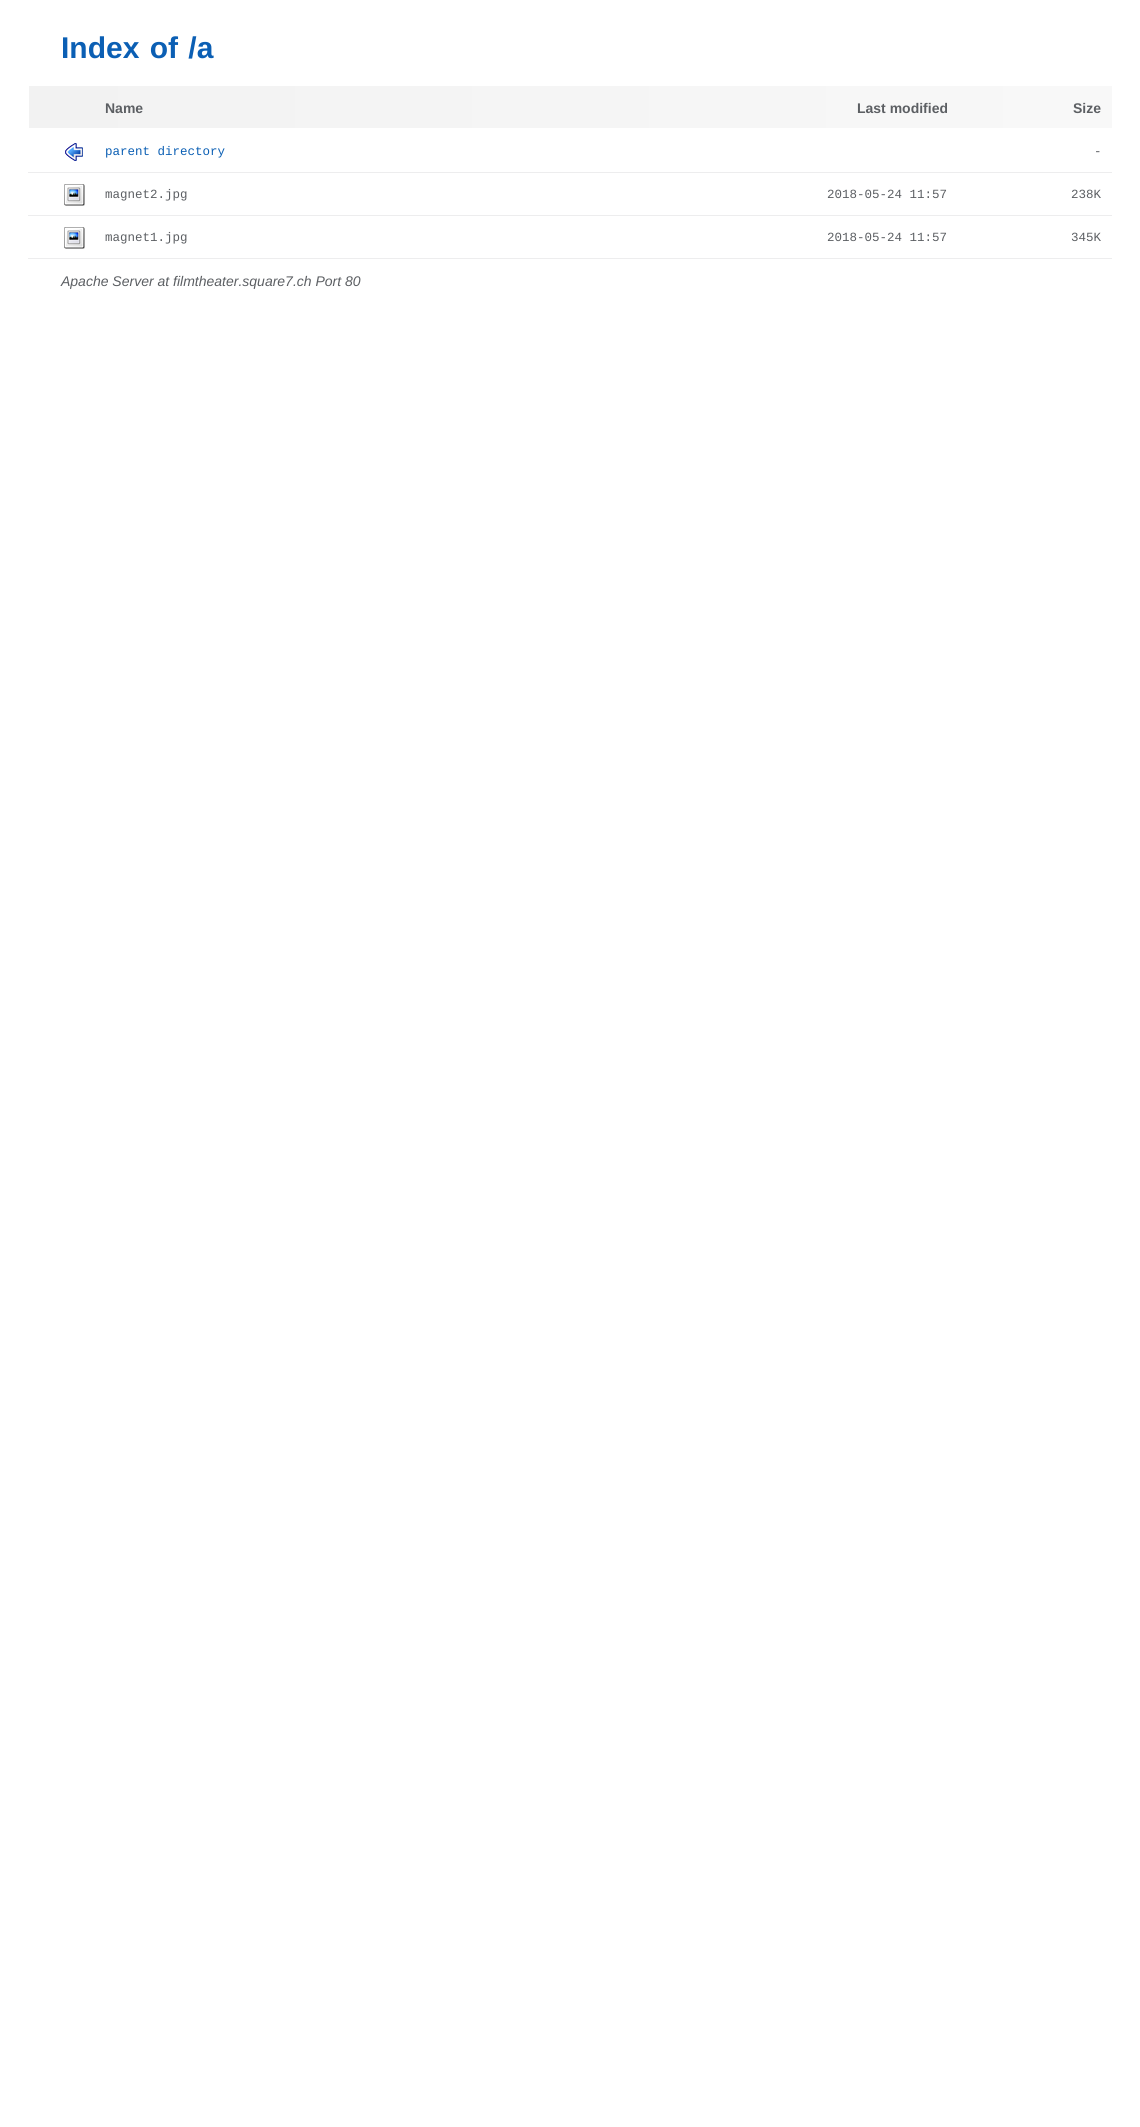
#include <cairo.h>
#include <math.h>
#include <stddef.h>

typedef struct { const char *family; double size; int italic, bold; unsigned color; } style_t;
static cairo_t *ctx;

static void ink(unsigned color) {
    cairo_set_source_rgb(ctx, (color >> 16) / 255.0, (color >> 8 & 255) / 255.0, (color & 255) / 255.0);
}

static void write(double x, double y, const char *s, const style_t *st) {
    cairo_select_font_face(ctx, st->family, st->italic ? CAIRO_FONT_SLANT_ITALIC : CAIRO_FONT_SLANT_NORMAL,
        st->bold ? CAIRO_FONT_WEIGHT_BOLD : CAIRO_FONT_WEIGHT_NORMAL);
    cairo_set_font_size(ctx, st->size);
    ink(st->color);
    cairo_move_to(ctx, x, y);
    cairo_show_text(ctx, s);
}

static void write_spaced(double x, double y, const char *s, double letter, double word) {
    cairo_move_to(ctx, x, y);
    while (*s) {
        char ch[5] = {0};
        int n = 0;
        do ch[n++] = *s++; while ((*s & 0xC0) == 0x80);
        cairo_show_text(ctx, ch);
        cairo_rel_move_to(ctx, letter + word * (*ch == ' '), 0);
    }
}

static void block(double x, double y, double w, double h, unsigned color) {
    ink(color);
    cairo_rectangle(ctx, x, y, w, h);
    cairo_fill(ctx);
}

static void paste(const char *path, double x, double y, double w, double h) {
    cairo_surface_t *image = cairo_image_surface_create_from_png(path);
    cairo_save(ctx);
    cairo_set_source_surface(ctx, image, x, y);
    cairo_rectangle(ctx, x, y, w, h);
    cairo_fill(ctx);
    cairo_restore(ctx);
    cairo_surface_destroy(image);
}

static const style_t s1 = {"Liberation Sans", 14, 0, 1, 0x5c5f63};
static const style_t s2 = {"Liberation Mono", 12.5, 0, 0, 0x0b5fb4};
static const style_t s3 = {"Liberation Mono", 12.5, 0, 0, 0x5c5f63};
static const style_t s4 = {"Liberation Sans", 14, 1, 0, 0x5c5f63};

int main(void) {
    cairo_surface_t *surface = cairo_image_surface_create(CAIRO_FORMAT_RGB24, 1140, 2127);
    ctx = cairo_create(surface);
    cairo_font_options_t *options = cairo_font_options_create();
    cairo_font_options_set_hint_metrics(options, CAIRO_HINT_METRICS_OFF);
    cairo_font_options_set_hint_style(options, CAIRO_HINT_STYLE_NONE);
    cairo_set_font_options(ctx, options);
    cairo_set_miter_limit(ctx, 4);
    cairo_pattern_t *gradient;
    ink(0xffffff);
    cairo_paint(ctx);
    cairo_select_font_face(ctx, "Liberation Sans", CAIRO_FONT_SLANT_NORMAL, CAIRO_FONT_WEIGHT_BOLD);
    cairo_set_font_size(ctx, 30);
    ink(0x0b5fb4);
    write_spaced(61, 58, "Index of /a", 0, 2);
    gradient = cairo_pattern_create_linear(29, 86, 1112, 86);
    cairo_pattern_add_color_stop_rgba(gradient, 0, 0.949, 0.949, 0.949, 1);
    cairo_pattern_add_color_stop_rgba(gradient, 1, 0.973, 0.973, 0.973, 1);
    cairo_set_source(ctx, gradient);
    cairo_pattern_destroy(gradient);
    cairo_rectangle(ctx, 29, 86, 1083, 42);
    cairo_fill(ctx);
    write(105, 113, "Name", &s1);
    write(857, 113, "Last modified", &s1);
    write(1073, 113, "Size", &s1);
    paste("pic1.png", 65, 143, 18, 18);
    write(105, 155, "parent directory", &s2);
    block(28, 172, 1084, 1, 0xededee);
    write(1094, 155, "-", &s3);
    paste("pic2.png", 64, 184, 21, 22);
    write(105, 198, "magnet2.jpg", &s3);
    write(827, 198, "2018-05-24 11:57", &s3);
    block(28, 215, 1084, 1, 0xededee);
    write(1071, 198, "238K", &s3);
    paste("pic2.png", 64, 227, 21, 22);
    write(105, 241, "magnet1.jpg", &s3);
    write(827, 241, "2018-05-24 11:57", &s3);
    block(28, 258, 1084, 1, 0xededee);
    write(1071, 241, "345K", &s3);
    write(61, 286, "Apache Server at filmtheater.square7.ch Port 80", &s4);
    cairo_surface_write_to_png(surface, "screenshot.png");
    cairo_font_options_destroy(options);
    cairo_destroy(ctx);
    cairo_surface_destroy(surface);
    return 0;
}
